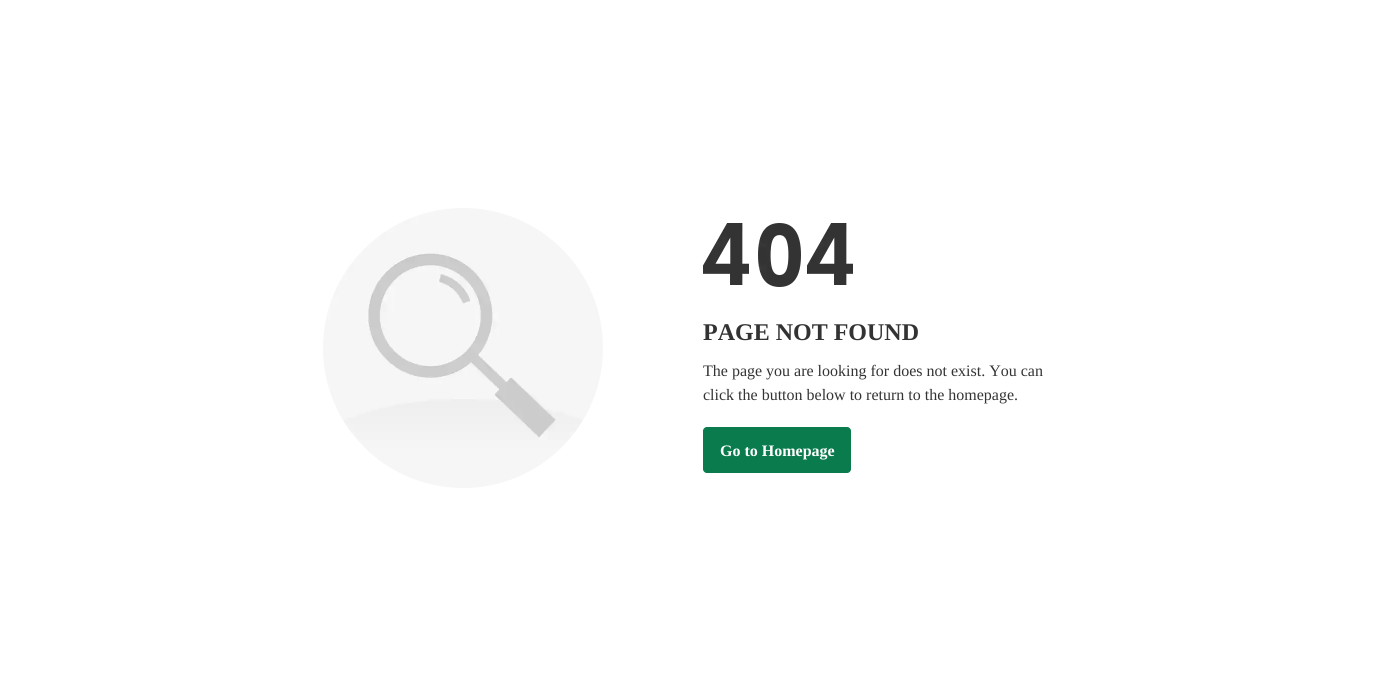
#include <cairo.h>
#include <math.h>
#include <stddef.h>

typedef struct { const char *family; double size; int italic, bold; unsigned color; } style_t;
static cairo_t *ctx;

static void ink(unsigned color) {
    cairo_set_source_rgb(ctx, (color >> 16) / 255.0, (color >> 8 & 255) / 255.0, (color & 255) / 255.0);
}

static void write(double x, double y, const char *s, const style_t *st) {
    cairo_select_font_face(ctx, st->family, st->italic ? CAIRO_FONT_SLANT_ITALIC : CAIRO_FONT_SLANT_NORMAL,
        st->bold ? CAIRO_FONT_WEIGHT_BOLD : CAIRO_FONT_WEIGHT_NORMAL);
    cairo_set_font_size(ctx, st->size);
    ink(st->color);
    cairo_move_to(ctx, x, y);
    cairo_show_text(ctx, s);
}

static void round_path(double x, double y, double w, double h, double r) {
    cairo_new_sub_path(ctx);
    cairo_arc(ctx, x + w - r, y + h - r, r, 0, M_PI / 2);
    cairo_arc(ctx, x + r, y + h - r, r, M_PI / 2, M_PI);
    cairo_arc(ctx, x + r, y + r, r, M_PI, 1.5 * M_PI);
    cairo_arc(ctx, x + w - r, y + r, r, 1.5 * M_PI, 2 * M_PI);
    cairo_close_path(ctx);
}

static void paste(const char *path, double x, double y, double w, double h) {
    cairo_surface_t *image = cairo_image_surface_create_from_png(path);
    cairo_save(ctx);
    cairo_set_source_surface(ctx, image, x, y);
    cairo_rectangle(ctx, x, y, w, h);
    cairo_fill(ctx);
    cairo_restore(ctx);
    cairo_surface_destroy(image);
}

static const style_t s1 = {"Liberation Serif", 24, 0, 1, 0x333333};
static const style_t s2 = {"Liberation Serif", 16, 0, 0, 0x333333};
static const style_t s3 = {"Liberation Serif", 16, 0, 1, 0xffffff};

int main(void) {
    cairo_surface_t *surface = cairo_image_surface_create(CAIRO_FORMAT_RGB24, 1377, 696);
    ctx = cairo_create(surface);
    cairo_font_options_t *options = cairo_font_options_create();
    cairo_font_options_set_hint_metrics(options, CAIRO_HINT_METRICS_OFF);
    cairo_font_options_set_hint_style(options, CAIRO_HINT_STYLE_NONE);
    cairo_set_font_options(ctx, options);
    cairo_set_miter_limit(ctx, 4);
    ink(0xffffff);
    cairo_paint(ctx);
    paste("pic1.png", 323, 208, 280, 280);
    paste("pic2.png", 703, 223, 150, 64);
    write(703, 340, "PAGE NOT FOUND", &s1);
    write(703, 376, "The page you are looking for does not exist. You can", &s2);
    write(703, 400, "click the button below to return to the homepage.", &s2);
    ink(0x0a7b4d);
    round_path(703.5, 427.5, 147, 45, 3.5);
    cairo_fill_preserve(ctx);
    cairo_set_line_width(ctx, 1);
    cairo_stroke(ctx);
    write(720, 456, "Go to Homepage", &s3);
    cairo_surface_write_to_png(surface, "screenshot.png");
    cairo_font_options_destroy(options);
    cairo_destroy(ctx);
    cairo_surface_destroy(surface);
    return 0;
}
